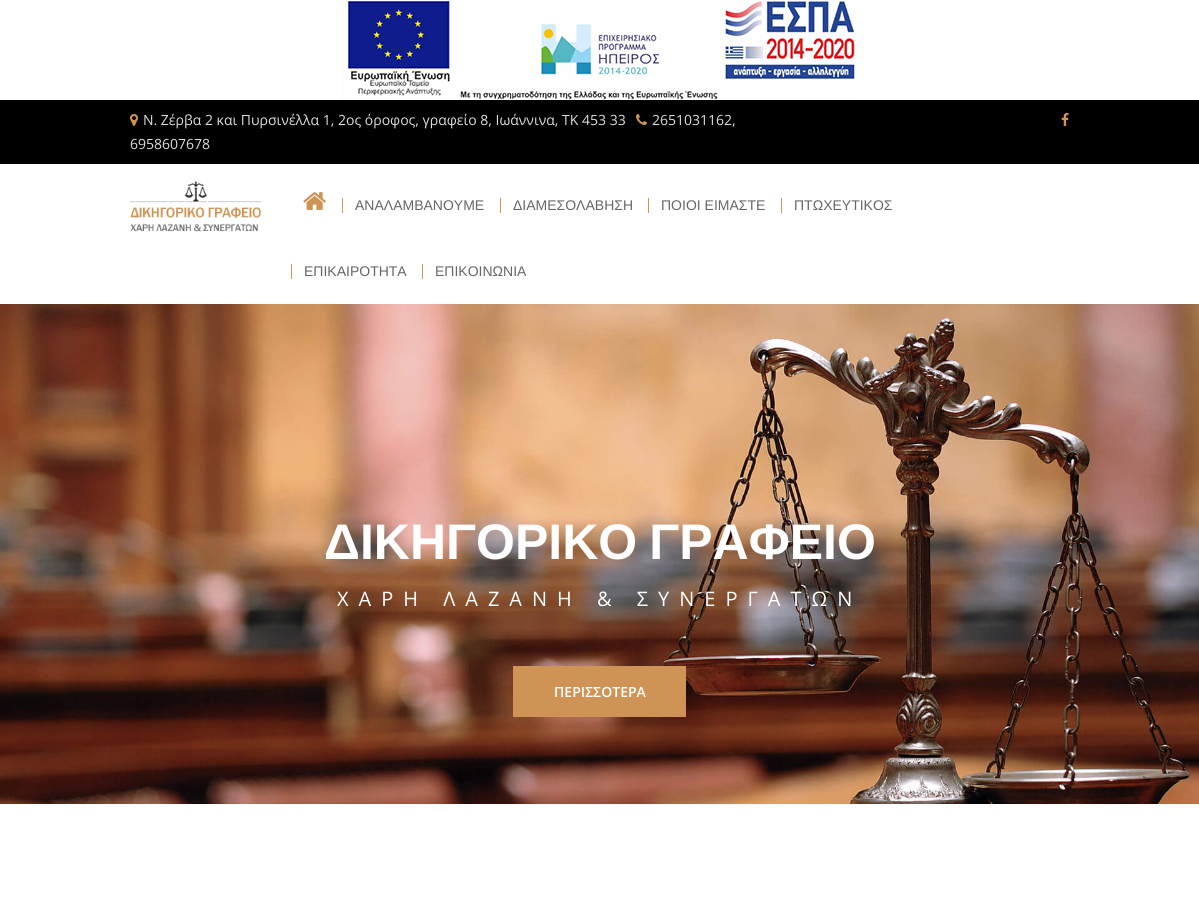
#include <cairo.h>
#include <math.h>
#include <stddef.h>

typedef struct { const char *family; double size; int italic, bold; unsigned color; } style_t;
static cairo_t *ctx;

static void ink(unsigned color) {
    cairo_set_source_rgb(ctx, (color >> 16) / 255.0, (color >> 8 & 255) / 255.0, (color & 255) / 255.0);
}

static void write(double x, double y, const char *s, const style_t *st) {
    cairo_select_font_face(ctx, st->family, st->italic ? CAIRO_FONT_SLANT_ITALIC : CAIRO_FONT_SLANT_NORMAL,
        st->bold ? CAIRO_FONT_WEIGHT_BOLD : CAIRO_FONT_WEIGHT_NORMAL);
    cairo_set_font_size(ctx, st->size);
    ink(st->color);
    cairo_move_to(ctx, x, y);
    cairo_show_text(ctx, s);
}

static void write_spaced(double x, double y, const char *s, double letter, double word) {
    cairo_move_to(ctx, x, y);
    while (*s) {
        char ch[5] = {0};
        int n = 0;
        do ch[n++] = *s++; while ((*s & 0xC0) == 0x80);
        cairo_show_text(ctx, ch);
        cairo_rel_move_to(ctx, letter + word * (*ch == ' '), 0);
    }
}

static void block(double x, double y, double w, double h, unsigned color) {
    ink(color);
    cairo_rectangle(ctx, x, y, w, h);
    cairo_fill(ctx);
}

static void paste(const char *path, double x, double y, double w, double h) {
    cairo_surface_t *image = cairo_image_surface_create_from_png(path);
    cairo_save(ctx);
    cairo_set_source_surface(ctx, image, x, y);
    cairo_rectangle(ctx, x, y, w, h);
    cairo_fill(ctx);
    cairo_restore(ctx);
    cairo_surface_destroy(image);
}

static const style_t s1 = {"Open Sans", 14, 0, 0, 0xdddddd};
static const style_t s2 = {"Liberation Sans", 14, 0, 0, 0x666666};
static const style_t s3 = {"Open Sans SemiBold", 14, 0, 0, 0xffffff};

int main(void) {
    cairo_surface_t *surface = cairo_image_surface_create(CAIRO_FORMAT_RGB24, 1199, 916);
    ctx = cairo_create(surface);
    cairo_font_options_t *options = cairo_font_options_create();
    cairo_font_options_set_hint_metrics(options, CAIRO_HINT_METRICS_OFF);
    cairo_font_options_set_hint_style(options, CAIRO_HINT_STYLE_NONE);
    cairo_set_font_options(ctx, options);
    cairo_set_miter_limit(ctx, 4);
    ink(0xffffff);
    cairo_paint(ctx);
    paste("pic1.png", 342, 0, 514, 100);
    block(0, 100, 1199, 64, 0x000000);
    paste("pic2.png", 130, 114, 8, 12);
    write(143, 125, "Ν. Ζέρβα 2 και Πυρσινέλλα 1, 2ος όροφος, γραφείο 8, Ιωάννινα, ΤΚ 453 33", &s1);
    paste("pic3.png", 636, 114, 11, 11);
    write(652, 125, "2651031162,", &s1);
    write(130, 149, "6958607678", &s1);
    paste("pic4.png", 1061, 113, 8, 13);
    paste("pic5.png", 130, 181, 131, 51);
    paste("pic6.png", 303, 192, 23, 18);
    block(342, 198, 1, 15, 0xcf9455);
    write(355, 210, "ΑΝΑΛΑΜΒΑΝΟΥΜΕ", &s2);
    block(500, 198, 1, 15, 0xcf9455);
    write(513, 210, "ΔΙΑΜΕΣΟΛΑΒΗΣΗ", &s2);
    block(648, 198, 1, 15, 0xcf9455);
    write(661, 210, "ΠΟΙΟΙ ΕΙΜΑΣΤΕ", &s2);
    block(781, 198, 1, 15, 0xcf9455);
    write(794, 210, "ΠΤΩΧΕΥΤΙΚΟΣ", &s2);
    block(291, 264, 1, 15, 0xcf9455);
    write(304, 276, "ΕΠΙΚΑΙΡΟΤΗΤΑ", &s2);
    block(422, 264, 1, 15, 0xcf9455);
    write(435, 276, "ΕΠΙΚΟΙΝΩΝΙΑ", &s2);
    paste("pic7.png", 0, 304, 1199, 500);
    cairo_select_font_face(ctx, "Liberation Sans", CAIRO_FONT_SLANT_NORMAL, CAIRO_FONT_WEIGHT_BOLD);
    cairo_set_font_size(ctx, 50);
    ink(0xffffff);
    write_spaced(324, 559, "ΔΙΚΗΓΟΡΙΚΟ ΓΡΑΦΕΙΟ", 0, -2);
    cairo_select_font_face(ctx, "Open Sans", CAIRO_FONT_SLANT_NORMAL, CAIRO_FONT_WEIGHT_NORMAL);
    cairo_set_font_size(ctx, 20);
    write_spaced(337, 606, "ΧΑΡΗ ΛΑΖΑΝΗ & ΣΥΝΕΡΓΑΤΩΝ", 10, 0);
    block(513, 666, 173, 51, 0xcf9455);
    write(554, 697, "ΠΕΡΙΣΣΟΤΕΡΑ", &s3);
    cairo_surface_write_to_png(surface, "screenshot.png");
    cairo_font_options_destroy(options);
    cairo_destroy(ctx);
    cairo_surface_destroy(surface);
    return 0;
}
